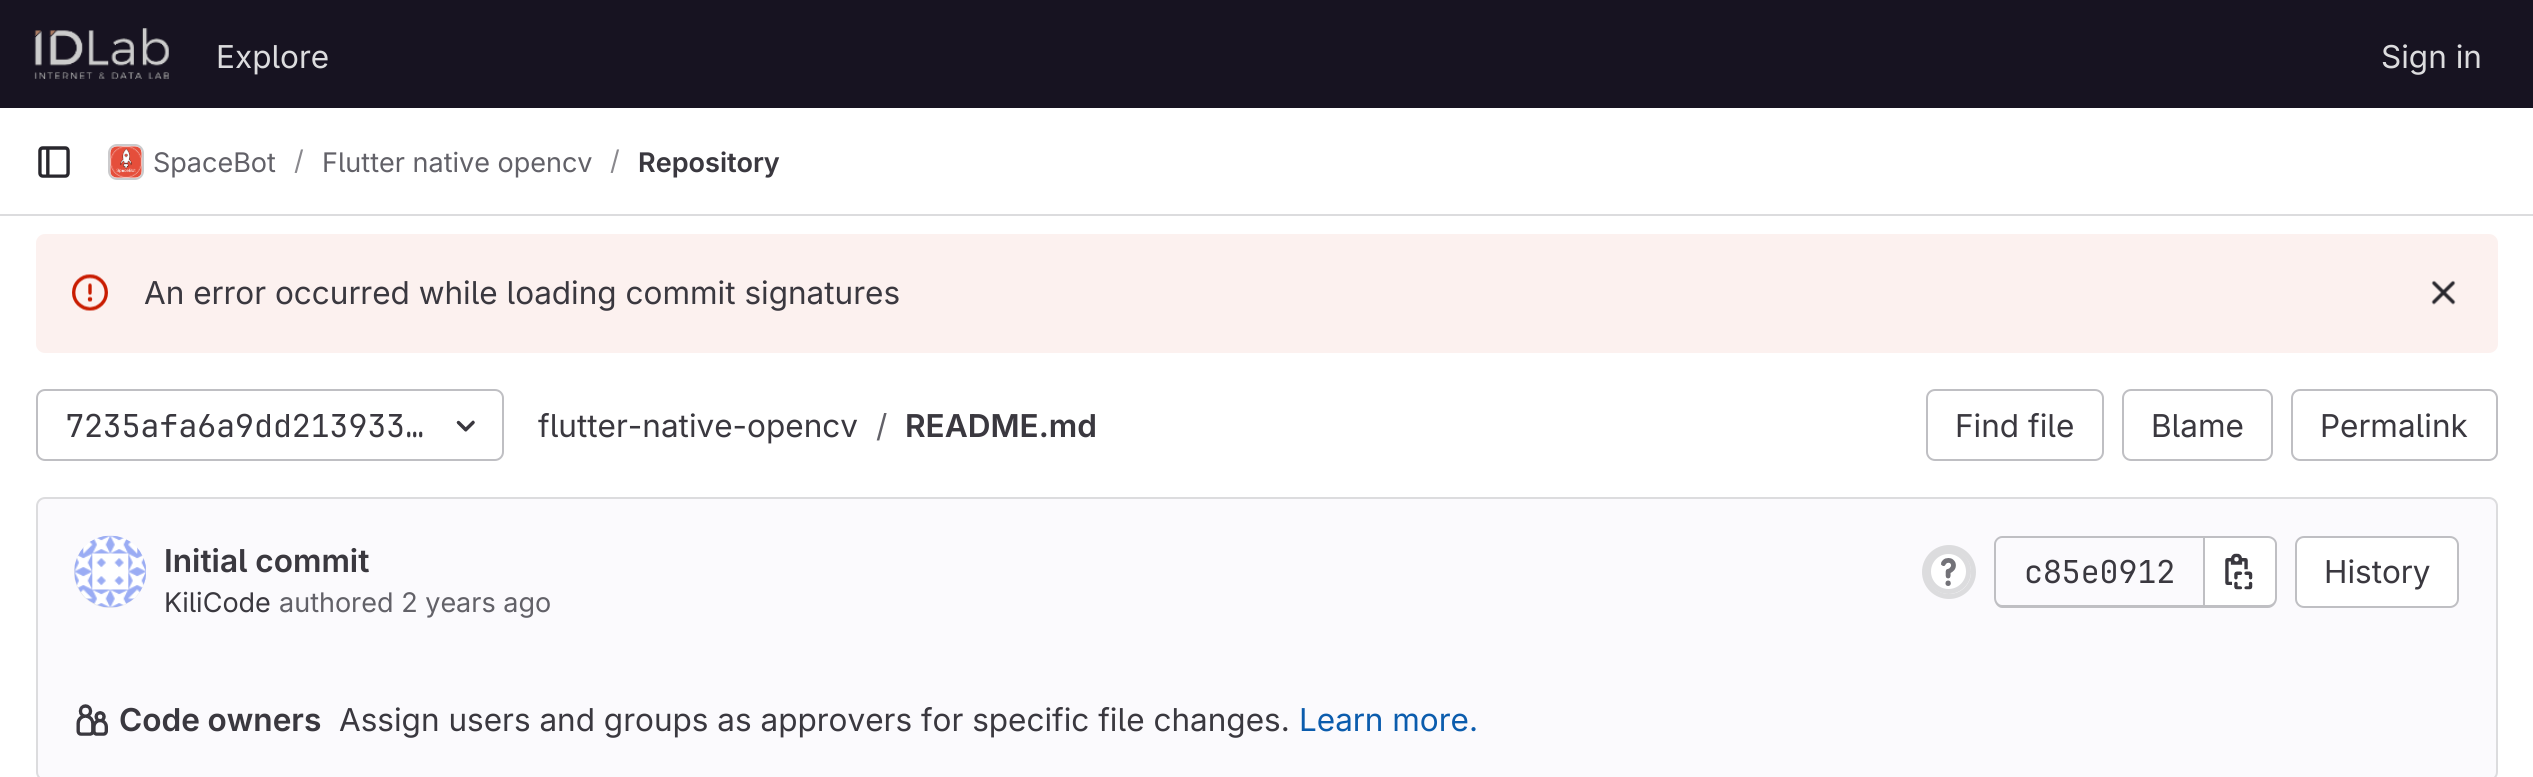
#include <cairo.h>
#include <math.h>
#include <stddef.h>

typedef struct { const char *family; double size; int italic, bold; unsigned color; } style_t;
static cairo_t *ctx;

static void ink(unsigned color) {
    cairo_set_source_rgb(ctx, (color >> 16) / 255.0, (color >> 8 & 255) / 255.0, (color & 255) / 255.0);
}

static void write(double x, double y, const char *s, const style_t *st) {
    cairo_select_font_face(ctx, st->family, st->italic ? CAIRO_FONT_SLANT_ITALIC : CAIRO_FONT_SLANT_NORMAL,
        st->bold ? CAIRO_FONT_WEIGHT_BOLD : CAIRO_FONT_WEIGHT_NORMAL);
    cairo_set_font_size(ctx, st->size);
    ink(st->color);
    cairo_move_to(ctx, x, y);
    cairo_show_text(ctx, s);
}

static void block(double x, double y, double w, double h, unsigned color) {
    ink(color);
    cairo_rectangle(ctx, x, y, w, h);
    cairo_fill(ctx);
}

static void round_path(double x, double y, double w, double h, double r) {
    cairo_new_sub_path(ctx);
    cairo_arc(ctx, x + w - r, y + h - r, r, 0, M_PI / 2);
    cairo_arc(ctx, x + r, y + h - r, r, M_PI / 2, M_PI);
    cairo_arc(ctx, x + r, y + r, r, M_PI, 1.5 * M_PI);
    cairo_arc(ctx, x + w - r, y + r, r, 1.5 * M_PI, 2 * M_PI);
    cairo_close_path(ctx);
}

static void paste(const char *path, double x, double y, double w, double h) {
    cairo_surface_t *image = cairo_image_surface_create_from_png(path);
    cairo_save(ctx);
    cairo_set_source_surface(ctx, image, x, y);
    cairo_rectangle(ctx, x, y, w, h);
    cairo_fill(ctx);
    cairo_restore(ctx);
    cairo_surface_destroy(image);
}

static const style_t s1 = {"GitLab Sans", 31.5, 0, 0, 0xdcdcde};
static const style_t s2 = {"GitLab Sans", 27, 0, 0, 0x626168};
static const style_t s3 = {"GitLab Sans", 27, 0, 0, 0x89888d};
static const style_t s4 = {"GitLab Sans SemiBold", 27, 0, 0, 0x3a383f};
static const style_t s5 = {"GitLab Sans", 31.5, 0, 0, 0x3a383f};
static const style_t s6 = {"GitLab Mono", 31.5, 0, 0, 0x3a383f};
static const style_t s7 = {"GitLab Sans", 31.5, 0, 0, 0x626168};
static const style_t s8 = {"GitLab Sans SemiBold", 31.5, 0, 0, 0x3a383f};
static const style_t s9 = {"GitLab Sans", 27, 0, 0, 0x3a383f};
static const style_t s10 = {"GitLab Sans", 31.5, 0, 0, 0x0b5cad};

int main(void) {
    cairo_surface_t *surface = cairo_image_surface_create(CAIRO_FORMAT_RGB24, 2533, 777);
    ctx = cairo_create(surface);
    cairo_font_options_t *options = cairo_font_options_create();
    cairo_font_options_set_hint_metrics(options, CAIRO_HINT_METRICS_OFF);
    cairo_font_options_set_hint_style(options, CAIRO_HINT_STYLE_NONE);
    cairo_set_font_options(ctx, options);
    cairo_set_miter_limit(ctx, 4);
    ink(0xffffff);
    cairo_paint(ctx);
    block(0, 0, 2533, 108, 0x171321);
    paste("pic1.png", 34, 28, 135, 51);
    write(216, 68, "Explore", &s1);
    write(2381, 68, "Sign in", &s1);
    block(0, 214, 2533, 2, 0xdcdcde);
    paste("pic2.png", 38, 146, 32, 32);
    round_path(109, 145, 34, 34, 8);
    cairo_stroke(ctx);
    paste("pic3.png", 110, 146, 32, 32);
    round_path(109, 145, 34, 34, 8);
    cairo_set_source_rgba(ctx, 0.02, 0.02, 0.024, 0.08);
    cairo_stroke(ctx);
    write(153, 172, "SpaceBot", &s2);
    write(294, 170, "/", &s3);
    write(322, 172, "Flutter native opencv", &s2);
    write(610, 170, "/", &s3);
    write(638, 172, "Repository", &s4);
    ink(0xfcf1ef);
    round_path(36, 234, 2462, 119, 9);
    cairo_fill(ctx);
    paste("pic4.png", 72, 274, 36, 37);
    write(144, 304, "An error occurred while loading commit signatures", &s5);
    paste("pic5.png", 2431, 280, 25, 25);
    round_path(37, 390, 466, 70, 8);
    ink(0xbfbfc3);
    cairo_stroke(ctx);
    write(65, 437, "7235afa6a9dd213933…", &s6);
    paste("pic6.png", 456, 420, 19, 12);
    write(538, 437, "flutter-native-opencv", &s5);
    write(876, 437, "/", &s7);
    write(905, 437, "README.md", &s8);
    round_path(1927, 390, 176, 70, 8);
    ink(0xbfbfc3);
    cairo_stroke(ctx);
    write(1955, 437, "Find file", &s5);
    round_path(2123, 390, 149, 70, 8);
    ink(0xbfbfc3);
    cairo_stroke(ctx);
    write(2151, 437, "Blame", &s5);
    round_path(2292, 390, 205, 70, 8);
    ink(0xbfbfc3);
    cairo_stroke(ctx);
    write(2320, 437, "Permalink", &s5);
    ink(0xfbfafd);
    round_path(37, 498, 2460, 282, 8);
    cairo_fill_preserve(ctx);
    ink(0xdcdcde);
    cairo_stroke(ctx);
    cairo_arc(ctx, 110, 572, 35, 0, 2 * M_PI);
    ink(0xe7e6e9);
    cairo_stroke(ctx);
    paste("pic7.png", 74, 535, 72, 73);
    write(164, 572, "Initial commit", &s8);
    write(164, 612, "KiliCode", &s9);
    write(279, 612, "authored 2 years ago", &s2);
    cairo_new_path(ctx);
    cairo_arc(ctx, 1949, 572, 24.5, 0, 2 * M_PI);
    ink(0xdcdcde);
    cairo_set_line_width(ctx, 5);
    cairo_stroke(ctx);
    ink(0xffffff);
    cairo_arc(ctx, 1948.5, 571.5, 20, 0, 2 * M_PI);
    cairo_fill_preserve(ctx);
    ink(0xdcdcde);
    cairo_stroke(ctx);
    paste("pic8.png", 1941, 558, 15, 28);
    ink(0xbfbfc3);
    cairo_set_fill_rule(ctx, CAIRO_FILL_RULE_EVEN_ODD);
    cairo_new_path(ctx);
    cairo_move_to(ctx, 2002, 536);
    cairo_line_to(ctx, 2203, 536);
    cairo_line_to(ctx, 2203, 608);
    cairo_line_to(ctx, 2002, 608);
    cairo_curve_to(ctx, 1998, 608, 1994, 603, 1994, 598);
    cairo_line_to(ctx, 1994, 544);
    cairo_curve_to(ctx, 1994, 540, 1998, 536, 2002, 536);
    cairo_close_path(ctx);
    cairo_move_to(ctx, 2002, 538);
    cairo_line_to(ctx, 2203, 538);
    cairo_line_to(ctx, 2203, 605);
    cairo_line_to(ctx, 2002, 605);
    cairo_curve_to(ctx, 1999, 605, 1996, 602, 1996, 598);
    cairo_line_to(ctx, 1996, 544);
    cairo_curve_to(ctx, 1996, 541, 1999, 538, 2002, 538);
    cairo_close_path(ctx);
    cairo_fill(ctx);
    write(2024, 583, "c85e0912", &s6);
    ink(0xffffff);
    cairo_new_path(ctx);
    cairo_move_to(ctx, 2205, 538);
    cairo_line_to(ctx, 2268, 538);
    cairo_curve_to(ctx, 2272, 538, 2275, 541, 2275, 545);
    cairo_line_to(ctx, 2275, 598);
    cairo_curve_to(ctx, 2275, 602, 2272, 605, 2268, 605);
    cairo_line_to(ctx, 2205, 605);
    cairo_close_path(ctx);
    cairo_fill(ctx);
    ink(0xbfbfc3);
    cairo_new_path(ctx);
    cairo_move_to(ctx, 2205, 536);
    cairo_line_to(ctx, 2268, 536);
    cairo_curve_to(ctx, 2273, 536, 2277, 540, 2277, 544);
    cairo_line_to(ctx, 2277, 598);
    cairo_curve_to(ctx, 2277, 603, 2273, 608, 2268, 608);
    cairo_line_to(ctx, 2205, 608);
    cairo_close_path(ctx);
    cairo_move_to(ctx, 2205, 538);
    cairo_line_to(ctx, 2268, 538);
    cairo_curve_to(ctx, 2272, 538, 2275, 541, 2275, 544);
    cairo_line_to(ctx, 2275, 598);
    cairo_curve_to(ctx, 2275, 602, 2272, 605, 2268, 605);
    cairo_line_to(ctx, 2205, 605);
    cairo_close_path(ctx);
    cairo_fill(ctx);
    block(2203, 536, 2, 72, 0xbfbfc3);
    paste("pic9.png", 2225, 553, 28, 37);
    ink(0xffffff);
    round_path(2296, 537, 162, 70, 8);
    cairo_fill_preserve(ctx);
    ink(0xbfbfc3);
    cairo_set_line_width(ctx, 2);
    cairo_stroke(ctx);
    write(2324, 583, "History", &s5);
    paste("pic10.png", 76, 704, 32, 32);
    write(119, 731, "Code owners", &s8);
    write(339, 731, "Assign users and groups as approvers for specific file changes.", &s5);
    write(1299, 731, "Learn more.", &s10);
    cairo_surface_write_to_png(surface, "screenshot.png");
    cairo_font_options_destroy(options);
    cairo_destroy(ctx);
    cairo_surface_destroy(surface);
    return 0;
}
